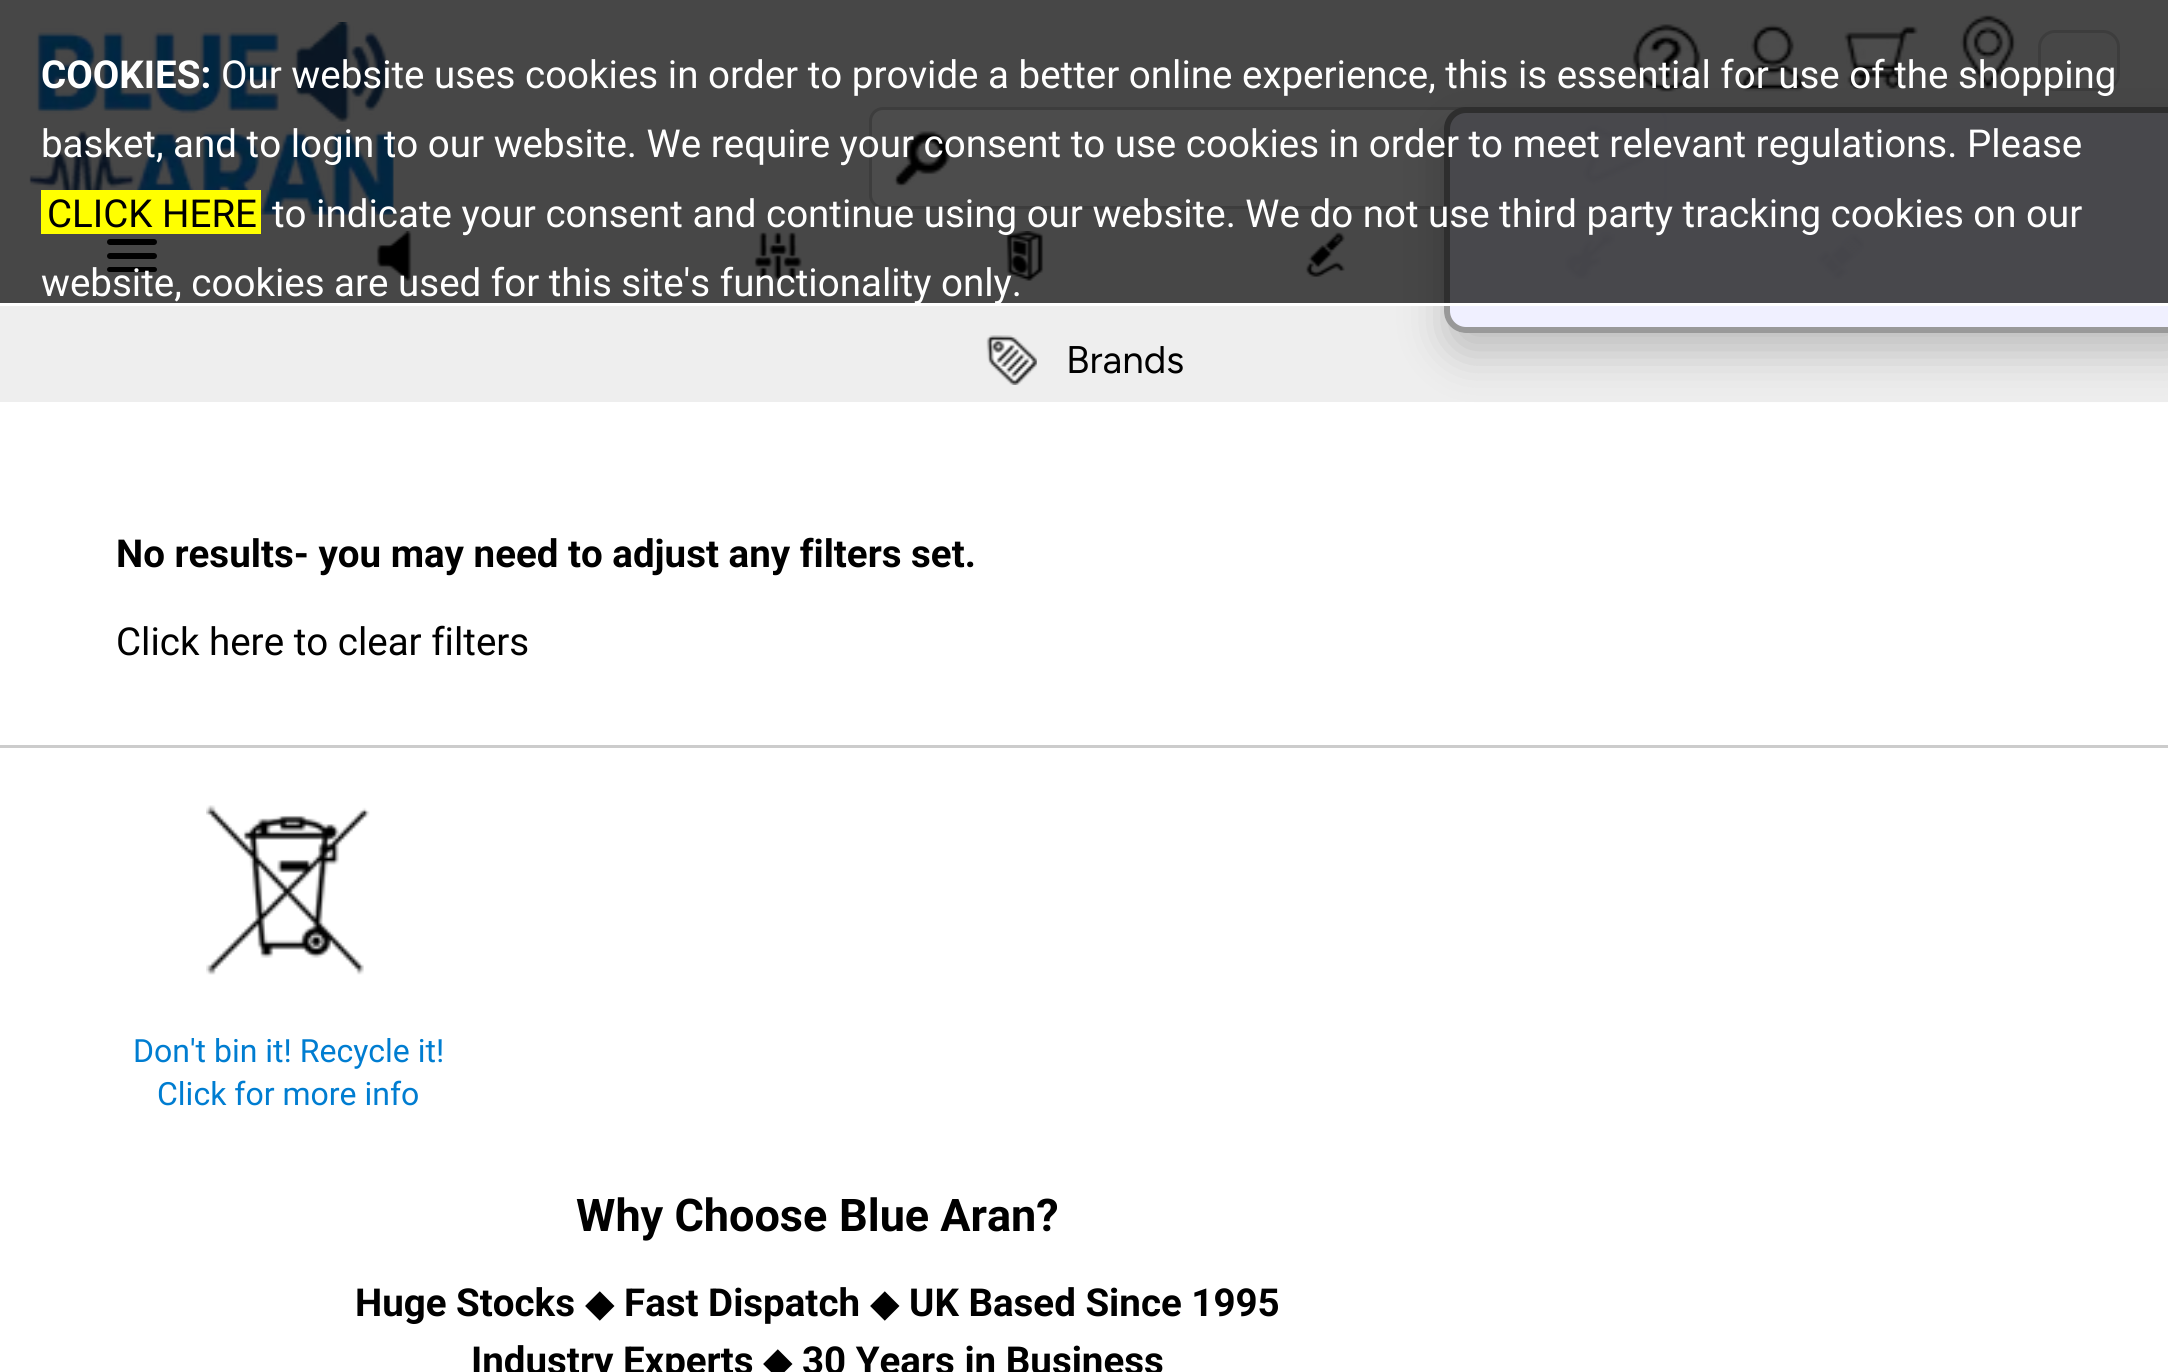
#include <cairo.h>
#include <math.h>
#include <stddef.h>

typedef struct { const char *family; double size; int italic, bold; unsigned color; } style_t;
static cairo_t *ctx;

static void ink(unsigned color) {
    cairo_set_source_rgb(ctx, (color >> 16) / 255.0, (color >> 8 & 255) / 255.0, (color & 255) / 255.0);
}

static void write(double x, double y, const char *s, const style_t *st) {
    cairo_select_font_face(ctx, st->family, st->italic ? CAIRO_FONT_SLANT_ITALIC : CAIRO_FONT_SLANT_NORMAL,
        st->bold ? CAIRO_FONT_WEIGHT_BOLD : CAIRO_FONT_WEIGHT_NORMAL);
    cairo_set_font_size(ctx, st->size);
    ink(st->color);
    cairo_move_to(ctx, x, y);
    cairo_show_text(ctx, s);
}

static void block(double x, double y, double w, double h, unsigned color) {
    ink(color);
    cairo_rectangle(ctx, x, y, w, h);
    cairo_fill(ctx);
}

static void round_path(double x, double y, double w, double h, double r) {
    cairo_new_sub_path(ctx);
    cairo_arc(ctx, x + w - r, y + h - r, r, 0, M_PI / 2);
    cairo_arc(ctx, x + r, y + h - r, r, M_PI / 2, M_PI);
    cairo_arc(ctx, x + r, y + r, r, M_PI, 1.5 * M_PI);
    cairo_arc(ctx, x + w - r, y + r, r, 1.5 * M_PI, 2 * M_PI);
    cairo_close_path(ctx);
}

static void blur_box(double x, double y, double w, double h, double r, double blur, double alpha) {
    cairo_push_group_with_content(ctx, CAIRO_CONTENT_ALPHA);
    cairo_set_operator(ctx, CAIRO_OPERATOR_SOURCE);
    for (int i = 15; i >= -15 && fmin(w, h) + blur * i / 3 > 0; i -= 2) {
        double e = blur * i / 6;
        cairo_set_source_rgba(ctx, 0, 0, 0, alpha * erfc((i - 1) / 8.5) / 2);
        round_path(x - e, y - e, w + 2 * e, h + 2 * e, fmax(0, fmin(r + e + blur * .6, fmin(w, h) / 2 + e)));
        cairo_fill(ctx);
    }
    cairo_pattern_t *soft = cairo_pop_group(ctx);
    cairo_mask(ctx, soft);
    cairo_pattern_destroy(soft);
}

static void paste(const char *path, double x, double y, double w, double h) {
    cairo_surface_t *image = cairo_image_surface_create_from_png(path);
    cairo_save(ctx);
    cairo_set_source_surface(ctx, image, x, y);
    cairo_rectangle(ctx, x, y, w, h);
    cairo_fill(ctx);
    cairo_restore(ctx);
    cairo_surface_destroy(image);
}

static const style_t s1 = {"Roboto", 38.5, 0, 1, 0xffffff};
static const style_t s2 = {"Roboto", 38.5, 0, 0, 0xffffff};
static const style_t s3 = {"Roboto", 38.5, 0, 0, 0x000000};
static const style_t s4 = {"Figtree", 38.5, 0, 0, 0x000000};
static const style_t s5 = {"Roboto", 38.5, 0, 1, 0x000000};
static const style_t s6 = {"Roboto", 32, 0, 0, 0x007dd1};
static const style_t s7 = {"Roboto", 45, 0, 1, 0x000000};
static const style_t s8 = {"DejaVu Sans", 38.5, 0, 0, 0x000000};

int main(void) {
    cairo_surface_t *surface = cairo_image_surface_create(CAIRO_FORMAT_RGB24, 2168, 1372);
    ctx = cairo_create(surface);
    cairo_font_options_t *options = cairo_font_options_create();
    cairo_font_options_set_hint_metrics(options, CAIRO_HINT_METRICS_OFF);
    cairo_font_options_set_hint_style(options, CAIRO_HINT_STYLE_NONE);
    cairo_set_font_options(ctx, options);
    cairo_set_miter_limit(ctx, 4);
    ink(0xffffff);
    cairo_paint(ctx);
    block(0, 0, 2168, 402, 0xeeeeee);
    paste("pic1.png", 29, 22, 365, 193);
    ink(0xffffff);
    round_path(870.5, 108.5, 795, 99, 12.5);
    cairo_fill_preserve(ctx);
    ink(0xcccccc);
    cairo_set_line_width(ctx, 3);
    cairo_stroke(ctx);
    paste("pic2.png", 893, 131, 57, 57);
    paste("pic3.png", 1583, 123, 65, 62);
    paste("pic4.png", 1960, 14, 57, 75);
    round_path(2039.5, 31.5, 79, 58, 15.5);
    cairo_stroke(ctx);
    paste("pic5.png", 1632, 24, 69, 68);
    paste("pic6.png", 1739, 24, 66, 68);
    paste("pic7.png", 1844, 26, 74, 63);
    paste("pic12.png", 1565, 232, 50, 47);
    paste("pic13.png", 1817, 234, 47, 45);
    cairo_save(ctx);
    cairo_set_fill_rule(ctx, CAIRO_FILL_RULE_EVEN_ODD);
    cairo_new_path(ctx);
    cairo_move_to(ctx, 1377, 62);
    cairo_line_to(ctx, 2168, 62);
    cairo_line_to(ctx, 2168, 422);
    cairo_line_to(ctx, 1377, 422);
    cairo_close_path(ctx);
    cairo_move_to(ctx, 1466, 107);
    cairo_line_to(ctx, 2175, 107);
    cairo_curve_to(ctx, 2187, 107, 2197, 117, 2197, 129);
    cairo_line_to(ctx, 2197, 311);
    cairo_curve_to(ctx, 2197, 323, 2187, 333, 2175, 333);
    cairo_line_to(ctx, 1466, 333);
    cairo_curve_to(ctx, 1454, 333, 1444, 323, 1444, 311);
    cairo_line_to(ctx, 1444, 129);
    cairo_curve_to(ctx, 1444, 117, 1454, 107, 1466, 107);
    cairo_close_path(ctx);
    cairo_clip(ctx);
    ink(0x000000);
    blur_box(1444, 129, 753, 226, 22, 22, 0.2);
    cairo_restore(ctx);
    cairo_set_source_rgba(ctx, 0.941, 0.941, 1, 0.97);
    round_path(1447, 110, 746, 220, 19);
    cairo_fill_preserve(ctx);
    ink(0x999999);
    cairo_set_line_width(ctx, 6);
    cairo_stroke(ctx);
    ink(0x000000);
    round_path(107, 239, 50, 6, 3);
    cairo_fill(ctx);
    round_path(107, 253, 50, 6, 3);
    cairo_fill(ctx);
    round_path(107, 267, 50, 5, 2.5);
    cairo_fill(ctx);
    paste("pic8.png", 376, 231, 36, 50);
    paste("pic9.png", 754, 232, 48, 47);
    paste("pic10.png", 1006, 231, 38, 50);
    paste("pic11.png", 1305, 232, 40, 45);
    cairo_set_source_rgba(ctx, 0, 0, 0, 0.7);
    cairo_rectangle(ctx, 0, 0, 2168, 303);
    cairo_fill(ctx);
    block(0, 303, 2168, 3, 0xffffff);
    write(41, 88, "COOKIES:", &s1);
    write(221, 88, "Our website uses cookies in order to provide a better online experience, this is essential for use of the shopping", &s2);
    write(41, 157, "basket, and to login to our website. We require your consent to use cookies in order to meet relevant regulations. Please", &s2);
    block(41, 190, 220, 44, 0xffff00);
    write(47, 227, "CLICK HERE", &s3);
    write(272, 227, "to indicate your consent and continue using our website. We do not use third party tracking cookies on our", &s2);
    cairo_save(ctx);
    cairo_rectangle(ctx, 0, 0, 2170, 303);
    cairo_clip(ctx);
    write(41, 296, "website, cookies are used for this site's functionality only.", &s2);
    cairo_restore(ctx);
    paste("pic14.png", 986, 335, 51, 50);
    write(1066, 373, "Brands", &s4);
    write(116, 567, "No results- you may need to adjust any filters set.", &s5);
    write(116, 655, "Click here to clear filters", &s3);
    block(0, 745, 2168, 3, 0xcccccc);
    paste("pic15.png", 206, 805, 164, 170);
    write(133, 1062, "Don't bin it! Recycle it!", &s6);
    write(157, 1105, "Click for more info", &s6);
    write(576, 1231, "Why Choose", &s7);
    write(839, 1231, "Blue Aran?", &s7);
    write(355, 1316, "Huge Stocks", &s5);
    write(585, 1316, "◆", &s8);
    write(624, 1316, "Fast Dispatch", &s5);
    write(870, 1316, "◆", &s8);
    write(909, 1316, "UK Based Since 1995", &s5);
    write(471, 1374, "Industry Experts", &s5);
    write(763, 1374, "◆", &s8);
    write(802, 1374, "30 Years in Business", &s5);
    cairo_surface_write_to_png(surface, "screenshot.png");
    cairo_font_options_destroy(options);
    cairo_destroy(ctx);
    cairo_surface_destroy(surface);
    return 0;
}
